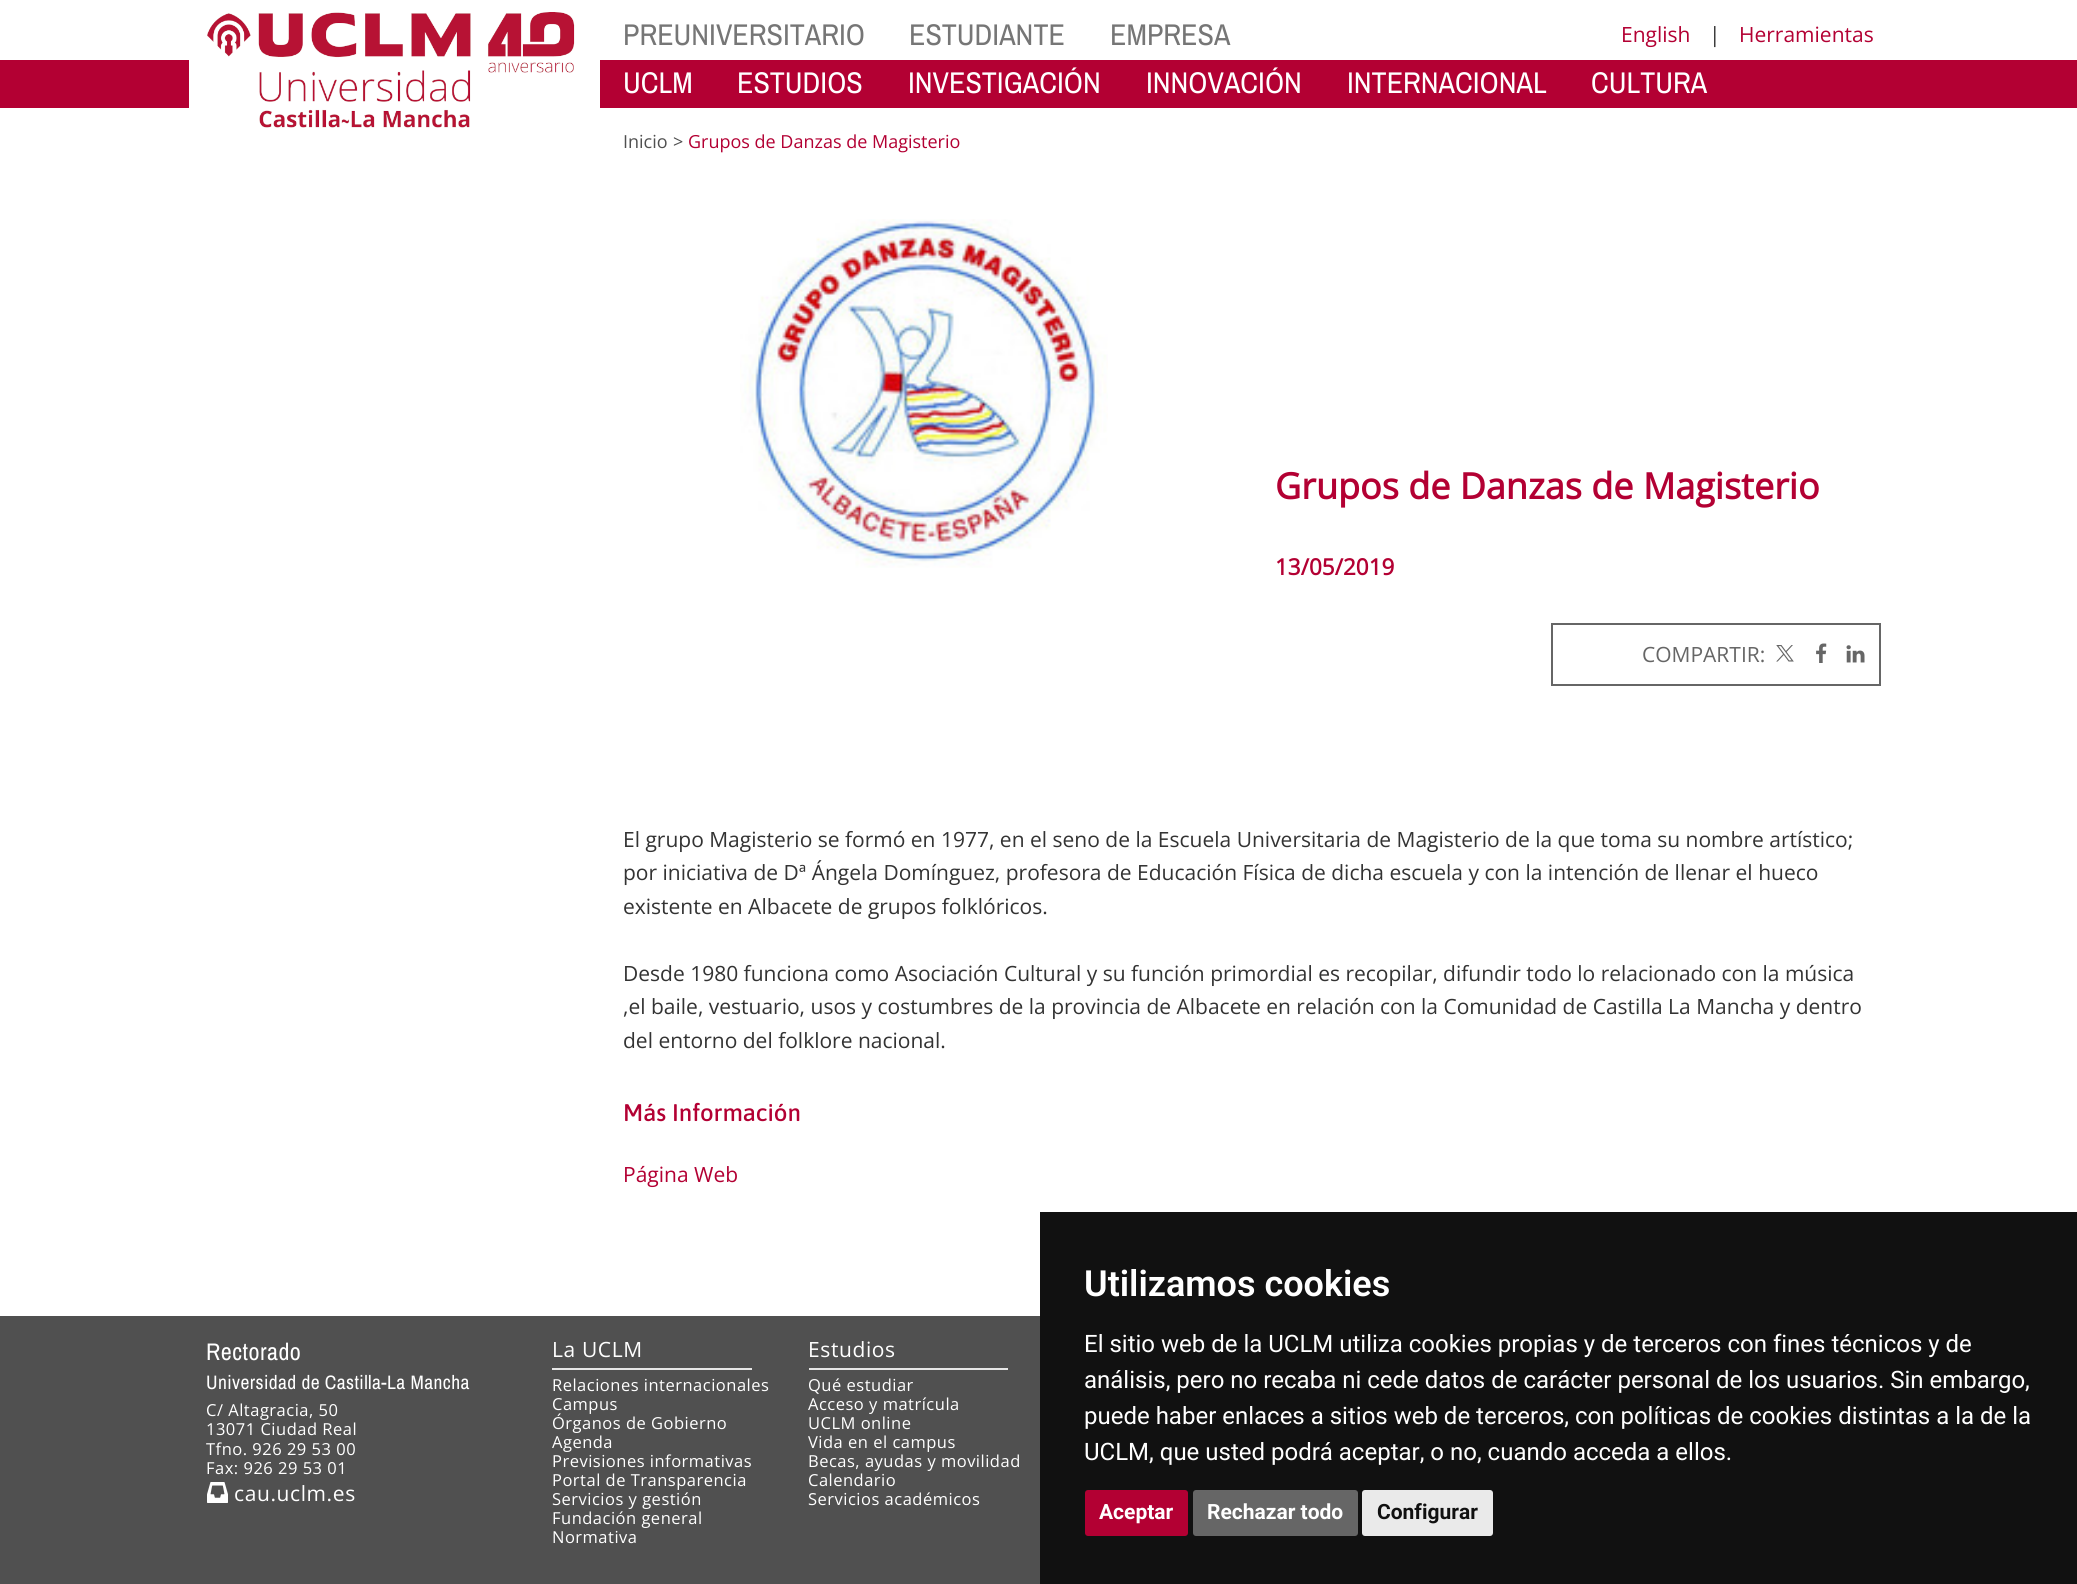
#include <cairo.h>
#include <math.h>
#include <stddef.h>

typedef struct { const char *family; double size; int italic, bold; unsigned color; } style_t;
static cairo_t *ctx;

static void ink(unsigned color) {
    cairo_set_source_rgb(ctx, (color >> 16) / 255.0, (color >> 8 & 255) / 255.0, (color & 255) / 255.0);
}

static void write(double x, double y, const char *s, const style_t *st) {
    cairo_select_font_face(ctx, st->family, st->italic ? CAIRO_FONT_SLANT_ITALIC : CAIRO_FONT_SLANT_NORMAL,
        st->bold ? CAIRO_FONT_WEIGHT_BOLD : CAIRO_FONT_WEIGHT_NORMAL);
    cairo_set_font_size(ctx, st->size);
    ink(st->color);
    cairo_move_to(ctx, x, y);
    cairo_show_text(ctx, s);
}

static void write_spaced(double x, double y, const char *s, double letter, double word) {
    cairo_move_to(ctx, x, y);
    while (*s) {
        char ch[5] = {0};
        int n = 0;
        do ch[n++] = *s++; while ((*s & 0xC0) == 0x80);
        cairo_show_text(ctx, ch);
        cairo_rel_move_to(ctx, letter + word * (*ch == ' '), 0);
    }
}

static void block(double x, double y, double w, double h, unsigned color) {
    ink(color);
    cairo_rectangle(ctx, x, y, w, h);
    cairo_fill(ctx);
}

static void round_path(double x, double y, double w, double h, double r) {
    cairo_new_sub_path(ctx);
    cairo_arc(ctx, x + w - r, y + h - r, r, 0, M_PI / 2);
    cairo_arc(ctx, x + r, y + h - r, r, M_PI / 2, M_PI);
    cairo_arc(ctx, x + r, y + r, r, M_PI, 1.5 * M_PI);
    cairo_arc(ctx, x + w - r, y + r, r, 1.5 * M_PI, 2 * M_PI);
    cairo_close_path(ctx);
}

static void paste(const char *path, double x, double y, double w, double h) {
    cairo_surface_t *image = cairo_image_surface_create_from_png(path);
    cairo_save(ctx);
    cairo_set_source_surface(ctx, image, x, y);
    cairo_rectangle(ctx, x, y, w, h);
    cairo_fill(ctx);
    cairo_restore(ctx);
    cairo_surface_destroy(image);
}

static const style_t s1 = {"Archivo Narrow", 30, 0, 0, 0x767676};
static const style_t s2 = {"Open Sans", 21, 0, 0, 0xb30033};
static const style_t s3 = {"Open Sans", 21, 0, 0, 0x333333};
static const style_t s4 = {"Archivo Narrow", 30, 0, 0, 0xffffff};
static const style_t s5 = {"Open Sans", 18, 0, 0, 0x505050};
static const style_t s6 = {"Open Sans", 18, 0, 0, 0xb30033};
static const style_t s7 = {"Open Sans", 36, 0, 1, 0xb30033};
static const style_t s8 = {"Open Sans", 22.5, 0, 1, 0xb30033};
static const style_t s9 = {"Open Sans", 21, 0, 0, 0x666666};
static const style_t s10 = {"Asap Medium", 24, 0, 0, 0xb30033};
static const style_t s11 = {"Roboto SemiBold", 36, 0, 0, 0xffffff};
static const style_t s12 = {"Roboto", 24, 0, 0, 0xffffff};
static const style_t s13 = {"Roboto", 21, 0, 1, 0xffffff};
static const style_t s14 = {"Roboto", 21, 0, 1, 0x111111};

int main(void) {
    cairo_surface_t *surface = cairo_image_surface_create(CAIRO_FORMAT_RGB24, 2077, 1584);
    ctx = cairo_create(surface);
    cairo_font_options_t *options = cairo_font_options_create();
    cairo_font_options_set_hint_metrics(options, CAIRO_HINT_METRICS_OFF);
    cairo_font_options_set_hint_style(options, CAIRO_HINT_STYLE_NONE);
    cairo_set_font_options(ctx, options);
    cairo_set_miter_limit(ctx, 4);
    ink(0xffffff);
    cairo_paint(ctx);
    block(0, 60, 2077, 48, 0xb30033);
    block(189, 60, 18, 48, 0xffffff);
    paste("pic1.png", 207, 12, 393, 116);
    write(623, 45, "PREUNIVERSITARIO", &s1);
    write(909, 45, "ESTUDIANTE", &s1);
    write(1110, 45, "EMPRESA", &s1);
    write(1621, 42, "English", &s2);
    write(1709, 42, "|", &s3);
    write(1739, 42, "Herramientas", &s2);
    write(623, 93, "UCLM", &s4);
    write(737, 93, "ESTUDIOS", &s4);
    write(908, 93, "INVESTIGACIÓN", &s4);
    write(1146, 93, "INNOVACIÓN", &s4);
    write(1347, 93, "INTERNACIONAL", &s4);
    write(1591, 93, "CULTURA", &s4);
    write(623, 148, "Inicio", &s5);
    write(673, 148, ">", &s5);
    write(688, 148, "Grupos de Danzas de Magisterio", &s6);
    paste("pic2.png", 740, 219, 368, 349);
    write(1275, 499, "Grupos de Danzas de Magisterio", &s7);
    write(1275, 575, "13/05/2019", &s8);
    cairo_rectangle(ctx, 1552, 624, 328, 61);
    ink(0x666666);
    cairo_stroke(ctx);
    write(1642, 662, "COMPARTIR:", &s9);
    paste("pic3.png", 1776, 645, 18, 17);
    paste("pic4.png", 1816, 643, 11, 20);
    paste("pic5.png", 1846, 645, 19, 18);
    write(623, 847, "El grupo Magisterio se formó en 1977, en el seno de la Escuela Universitaria de Magisterio de la que toma su nombre artístico;", &s3);
    write(623, 880, "por iniciativa de Dª Ángela Domínguez, profesora de Educación Física de dicha escuela y con la intención de llenar el hueco", &s3);
    write(623, 914, "existente en Albacete de grupos folklóricos.", &s3);
    write(623, 981, "Desde 1980 funciona como Asociación Cultural y su función primordial es recopilar, difundir todo lo relacionado con la música", &s3);
    write(623, 1014, ",el baile, vestuario, usos y costumbres de la provincia de Albacete en relación con la Comunidad de Castilla La Mancha y dentro", &s3);
    write(623, 1048, "del entorno del folklore nacional.", &s3);
    write(623, 1121, "Más Información", &s10);
    write(623, 1182, "Página Web", &s2);
    block(0, 1316, 1040, 268, 0x505050);
    cairo_select_font_face(ctx, "Archivo Narrow", CAIRO_FONT_SLANT_NORMAL, CAIRO_FONT_WEIGHT_NORMAL);
    cairo_set_font_size(ctx, 24);
    ink(0xffffff);
    write_spaced(206, 1360, "Rectorado", 0.5, 0);
    cairo_set_font_size(ctx, 19.5);
    write_spaced(206, 1389, "Universidad de Castilla-La Mancha", 0.4, 0);
    cairo_select_font_face(ctx, "Open Sans", CAIRO_FONT_SLANT_NORMAL, CAIRO_FONT_WEIGHT_NORMAL);
    cairo_set_font_size(ctx, 16.5);
    write_spaced(206, 1416, "C/ Altagracia, 50", 0.5, 0);
    write_spaced(206, 1435, "13071 Ciudad Real", 0.5, 0);
    write_spaced(206, 1455, "Tfno. 926 29 53 00", 0.5, 0);
    write_spaced(206, 1474, "Fax: 926 29 53 01", 0.5, 0);
    paste("pic6.png", 207, 1482, 21, 21);
    cairo_set_font_size(ctx, 21);
    write_spaced(234, 1501, "cau.uclm.es", 0.6, 0);
    block(552, 1368, 200, 2, 0xe6e6e6);
    ink(0xffffff);
    write_spaced(552, 1357, "La UCLM", 0.6, 0);
    cairo_set_font_size(ctx, 16.5);
    write_spaced(552, 1391, "Relaciones internacionales", 0.5, 0);
    write_spaced(552, 1410, "Campus", 0.5, 0);
    write_spaced(552, 1429, "Órganos de Gobierno", 0.5, 0);
    write_spaced(552, 1448, "Agenda", 0.5, 0);
    write_spaced(552, 1467, "Previsiones informativas", 0.5, 0);
    write_spaced(552, 1486, "Portal de Transparencia", 0.5, 0);
    write_spaced(552, 1505, "Servicios y gestión", 0.5, 0);
    write_spaced(552, 1524, "Fundación general", 0.5, 0);
    write_spaced(552, 1543, "Normativa", 0.5, 0);
    block(809, 1368, 199, 2, 0xe6e6e6);
    cairo_set_font_size(ctx, 21);
    ink(0xffffff);
    write_spaced(808, 1357, "Estudios", 0.6, 0);
    cairo_set_font_size(ctx, 16.5);
    write_spaced(808, 1391, "Qué estudiar", 0.5, 0);
    write_spaced(808, 1410, "Acceso y matrícula", 0.5, 0);
    write_spaced(808, 1429, "UCLM online", 0.5, 0);
    write_spaced(808, 1448, "Vida en el campus", 0.5, 0);
    write_spaced(808, 1467, "Becas, ayudas y movilidad", 0.5, 0);
    write_spaced(808, 1486, "Calendario", 0.5, 0);
    write_spaced(808, 1505, "Servicios académicos", 0.5, 0);
    block(1040, 1212, 1037, 372, 0x111111);
    write(1084, 1296, "Utilizamos cookies", &s11);
    write(1084, 1352, "El sitio web de la UCLM utiliza cookies propias y de terceros con fines técnicos y de", &s12);
    write(1084, 1388, "análisis, pero no recaba ni cede datos de carácter personal de los usuarios. Sin embargo,", &s12);
    write(1084, 1424, "puede haber enlaces a sitios web de terceros, con políticas de cookies distintas a la de la", &s12);
    write(1084, 1460, "UCLM, que usted podrá aceptar, o no, cuando acceda a ellos.", &s12);
    ink(0xb30033);
    round_path(1085, 1490, 103, 46, 3);
    cairo_fill(ctx);
    write(1099, 1519, "Aceptar", &s13);
    ink(0x666666);
    round_path(1193, 1490, 165, 46, 3);
    cairo_fill(ctx);
    write(1207, 1519, "Rechazar todo", &s13);
    ink(0xeaeaea);
    round_path(1362, 1490, 131, 46, 3);
    cairo_fill(ctx);
    write(1377, 1519, "Configurar", &s14);
    cairo_surface_write_to_png(surface, "screenshot.png");
    cairo_font_options_destroy(options);
    cairo_destroy(ctx);
    cairo_surface_destroy(surface);
    return 0;
}
